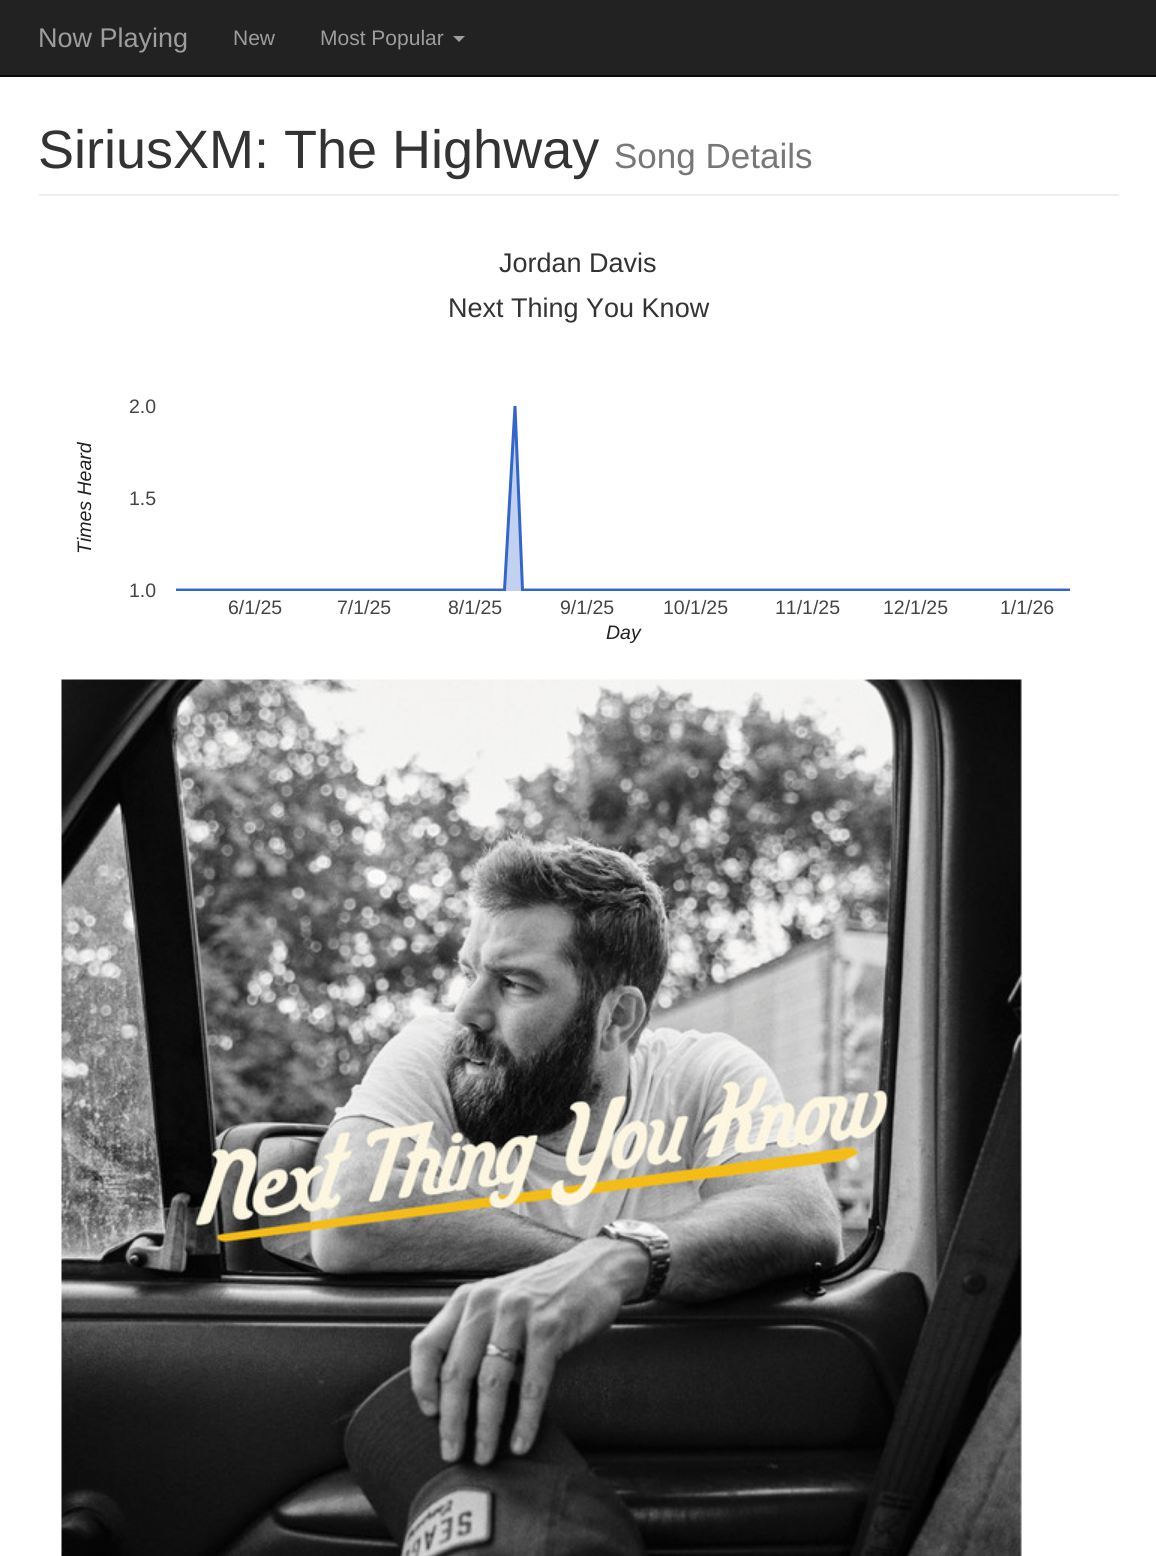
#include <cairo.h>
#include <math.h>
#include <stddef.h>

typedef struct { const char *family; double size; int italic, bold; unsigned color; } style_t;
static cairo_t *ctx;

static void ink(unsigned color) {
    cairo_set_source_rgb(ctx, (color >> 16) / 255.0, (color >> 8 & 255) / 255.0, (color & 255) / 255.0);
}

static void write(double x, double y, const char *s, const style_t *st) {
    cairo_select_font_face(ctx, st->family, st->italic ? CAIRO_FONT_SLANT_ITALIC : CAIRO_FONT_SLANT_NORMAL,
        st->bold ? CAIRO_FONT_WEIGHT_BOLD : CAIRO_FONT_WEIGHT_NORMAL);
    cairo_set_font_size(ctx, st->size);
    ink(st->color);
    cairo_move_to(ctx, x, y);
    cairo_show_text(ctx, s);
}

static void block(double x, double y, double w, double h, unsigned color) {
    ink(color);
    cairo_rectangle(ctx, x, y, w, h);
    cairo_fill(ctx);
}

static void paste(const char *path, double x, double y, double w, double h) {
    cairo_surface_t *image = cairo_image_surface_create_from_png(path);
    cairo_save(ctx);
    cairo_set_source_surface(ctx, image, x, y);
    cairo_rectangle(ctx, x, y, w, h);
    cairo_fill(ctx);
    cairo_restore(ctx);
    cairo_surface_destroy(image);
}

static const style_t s1 = {"Liberation Sans", 27, 0, 0, 0x9d9d9d};
static const style_t s2 = {"Liberation Sans", 21, 0, 0, 0x9d9d9d};
static const style_t s3 = {"Liberation Sans", 54, 0, 0, 0x333333};
static const style_t s4 = {"Liberation Sans", 35, 0, 0, 0x777777};
static const style_t s5 = {"Liberation Sans", 27, 0, 0, 0x333333};
static const style_t s6 = {"Liberation Sans", 19.5, 0, 0, 0x444444};
static const style_t s7 = {"Liberation Sans", 19.5, 1, 0, 0x222222};

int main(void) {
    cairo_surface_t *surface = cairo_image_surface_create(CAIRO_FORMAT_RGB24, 1156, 1556);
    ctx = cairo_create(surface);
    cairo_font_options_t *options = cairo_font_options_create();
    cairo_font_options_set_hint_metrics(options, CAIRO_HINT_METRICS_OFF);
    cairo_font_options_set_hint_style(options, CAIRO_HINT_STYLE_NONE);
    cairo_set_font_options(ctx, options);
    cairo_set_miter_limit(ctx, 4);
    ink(0xffffff);
    cairo_paint(ctx);
    block(0, 0, 1156, 75, 0x222222);
    block(0, 75, 1156, 2, 0x080808);
    write(38, 47, "Now Playing", &s1);
    write(233, 45, "New", &s2);
    write(320, 45, "Most Popular", &s2);
    cairo_new_path(ctx);
    cairo_move_to(ctx, 453, 36);
    cairo_line_to(ctx, 465, 36);
    cairo_line_to(ctx, 459, 42);
    cairo_close_path(ctx);
    cairo_fill(ctx);
    block(39, 194, 1080, 2, 0xeeeeee);
    write(38, 168, "SiriusXM: The Highway", &s3);
    write(614, 168, "Song Details", &s4);
    write(499, 272, "Jordan Davis", &s5);
    write(448, 317, "Next Thing You Know", &s5);
    write(129, 413, "2.0", &s6);
    cairo_save(ctx);
    cairo_translate(ctx, 91, 554);
    cairo_rotate(ctx, -90 * M_PI / 180);
    write(0, 0, "Times Heard", &s7);
    cairo_restore(ctx);
    write(129, 505, "1.5", &s6);
    cairo_save(ctx);
    cairo_rectangle(ctx, 176, 405, 895, 186);
    cairo_clip(ctx);
    ink(0xc2d1f0);
    cairo_new_path(ctx);
    cairo_move_to(ctx, 176, 775);
    cairo_line_to(ctx, 176, 590);
    cairo_line_to(ctx, 504, 590);
    cairo_line_to(ctx, 515, 406);
    cairo_line_to(ctx, 522, 590);
    cairo_line_to(ctx, 1070, 590);
    cairo_line_to(ctx, 1070, 775);
    cairo_close_path(ctx);
    cairo_fill(ctx);
    cairo_new_path(ctx);
    cairo_move_to(ctx, 176, 590);
    cairo_line_to(ctx, 504.5, 590);
    cairo_line_to(ctx, 515, 406);
    cairo_line_to(ctx, 522.5, 590);
    cairo_line_to(ctx, 1070, 590);
    ink(0x3366cc);
    cairo_set_line_width(ctx, 3);
    cairo_stroke(ctx);
    cairo_restore(ctx);
    write(129, 597, "1.0", &s6);
    write(228, 614, "6/1/25", &s6);
    write(337, 614, "7/1/25", &s6);
    write(448, 614, "8/1/25", &s6);
    write(560, 614, "9/1/25", &s6);
    write(663, 614, "10/1/25", &s6);
    write(775, 614, "11/1/25", &s6);
    write(883, 614, "12/1/25", &s6);
    write(1000, 614, "1/1/26", &s6);
    write(606, 639, "Day", &s7);
    paste("pic1.png", 61, 679, 961, 877);
    cairo_surface_write_to_png(surface, "screenshot.png");
    cairo_font_options_destroy(options);
    cairo_destroy(ctx);
    cairo_surface_destroy(surface);
    return 0;
}
